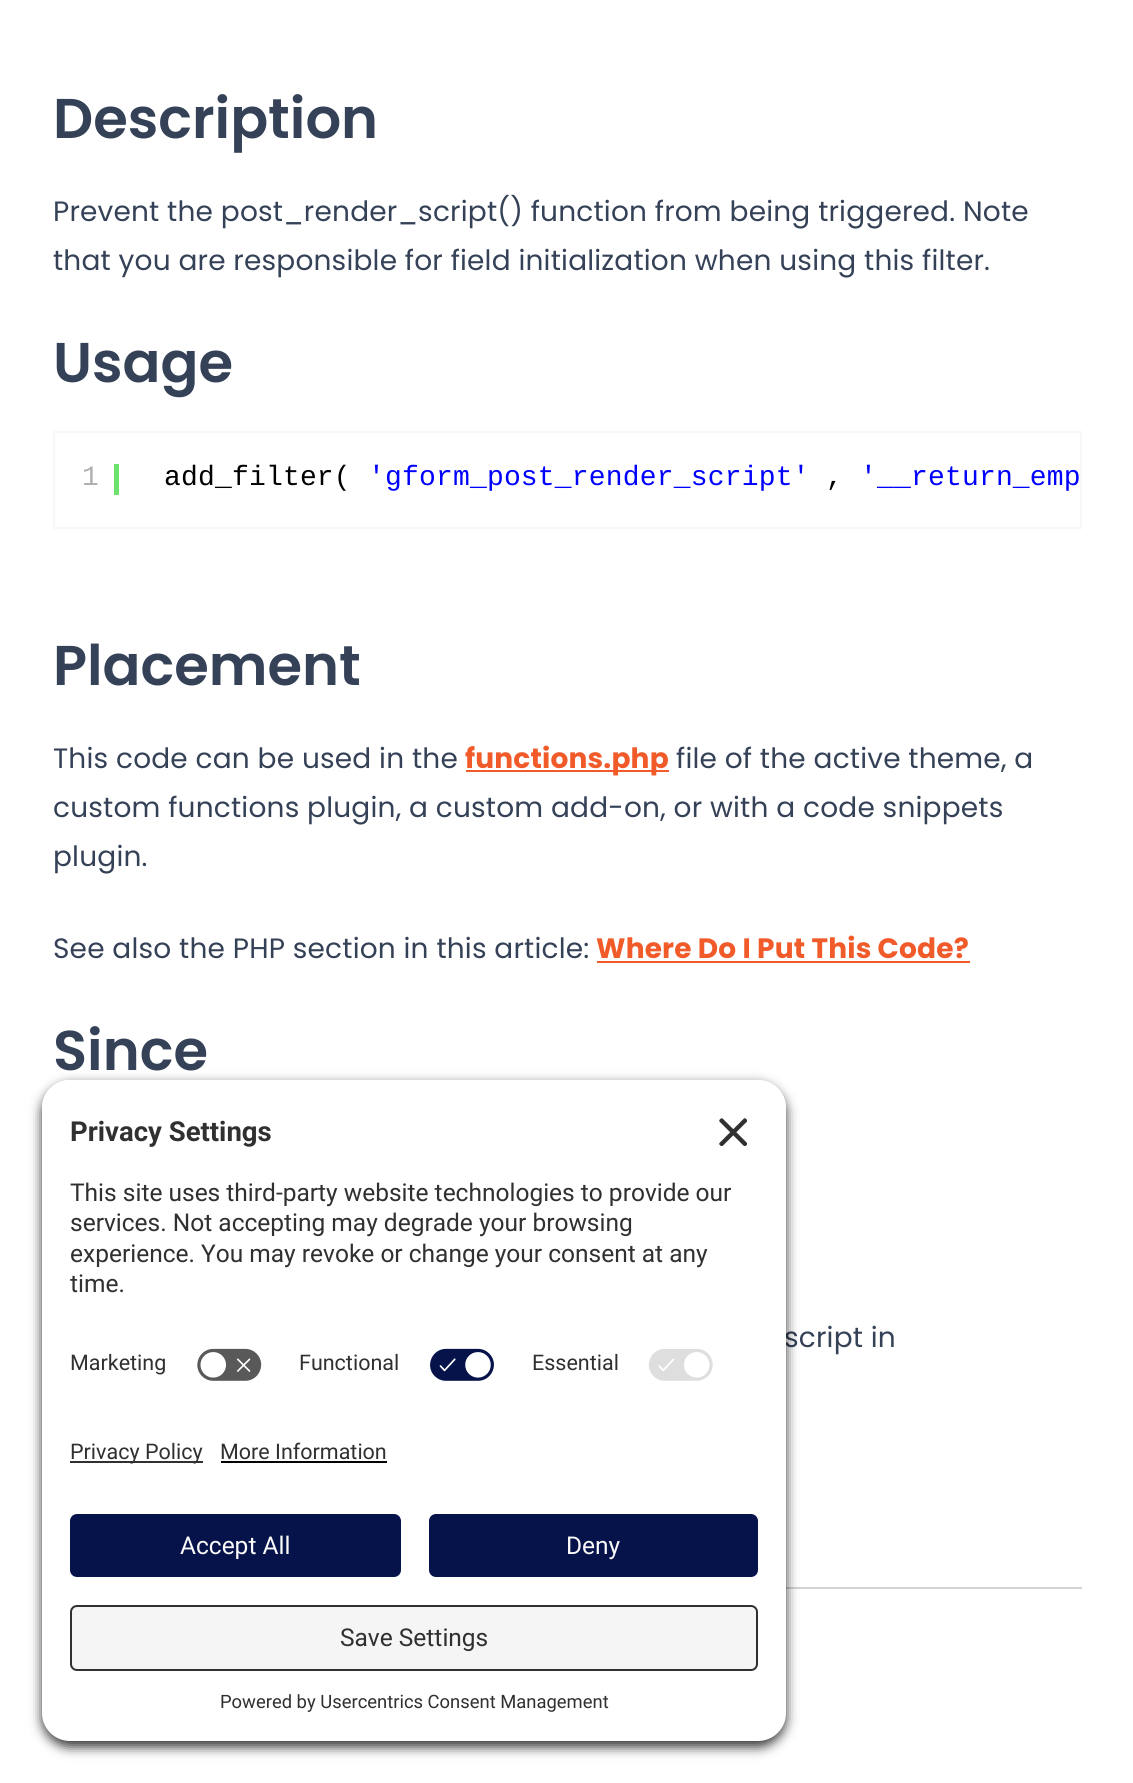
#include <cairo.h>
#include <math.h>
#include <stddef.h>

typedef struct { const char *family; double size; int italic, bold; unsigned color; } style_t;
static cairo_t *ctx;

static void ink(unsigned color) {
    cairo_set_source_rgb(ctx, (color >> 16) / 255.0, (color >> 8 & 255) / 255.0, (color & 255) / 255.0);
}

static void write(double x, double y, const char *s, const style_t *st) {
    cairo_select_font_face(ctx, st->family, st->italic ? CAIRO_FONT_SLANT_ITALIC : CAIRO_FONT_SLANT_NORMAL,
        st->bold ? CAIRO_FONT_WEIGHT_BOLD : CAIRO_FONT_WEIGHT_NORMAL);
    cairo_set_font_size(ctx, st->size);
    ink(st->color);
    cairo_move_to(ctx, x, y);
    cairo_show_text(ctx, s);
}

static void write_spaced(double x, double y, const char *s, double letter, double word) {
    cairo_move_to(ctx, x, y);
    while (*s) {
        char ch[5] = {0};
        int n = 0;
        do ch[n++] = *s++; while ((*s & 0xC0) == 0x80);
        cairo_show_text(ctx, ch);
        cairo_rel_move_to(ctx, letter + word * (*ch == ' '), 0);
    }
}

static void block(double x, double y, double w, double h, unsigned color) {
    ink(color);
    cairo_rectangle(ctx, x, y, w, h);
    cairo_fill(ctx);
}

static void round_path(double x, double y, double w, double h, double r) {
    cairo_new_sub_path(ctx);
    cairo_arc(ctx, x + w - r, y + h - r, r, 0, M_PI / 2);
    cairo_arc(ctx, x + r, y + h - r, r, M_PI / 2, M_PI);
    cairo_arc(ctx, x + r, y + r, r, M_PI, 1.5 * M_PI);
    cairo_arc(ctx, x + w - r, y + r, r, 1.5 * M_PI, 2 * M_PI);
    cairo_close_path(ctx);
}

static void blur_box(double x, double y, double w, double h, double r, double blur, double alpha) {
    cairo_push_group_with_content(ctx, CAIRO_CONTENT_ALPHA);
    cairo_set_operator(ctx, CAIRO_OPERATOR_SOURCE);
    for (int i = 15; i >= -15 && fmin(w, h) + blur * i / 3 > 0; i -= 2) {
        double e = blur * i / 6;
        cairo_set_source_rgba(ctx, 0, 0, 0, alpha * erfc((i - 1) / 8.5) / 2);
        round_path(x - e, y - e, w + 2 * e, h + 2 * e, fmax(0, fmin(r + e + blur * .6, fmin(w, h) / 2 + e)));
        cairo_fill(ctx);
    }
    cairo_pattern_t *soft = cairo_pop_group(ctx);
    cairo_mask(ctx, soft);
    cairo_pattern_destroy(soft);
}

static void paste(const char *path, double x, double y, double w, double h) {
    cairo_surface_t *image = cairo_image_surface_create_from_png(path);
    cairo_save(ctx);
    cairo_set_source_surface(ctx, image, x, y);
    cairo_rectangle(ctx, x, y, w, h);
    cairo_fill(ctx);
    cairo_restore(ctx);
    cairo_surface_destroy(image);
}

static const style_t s1 = {"Poppins SemiBold", 56, 0, 0, 0x344157};
static const style_t s2 = {"Roboto", 27.5, 0, 1, 0x303030};
static const style_t s3 = {"Roboto", 24.5, 0, 0, 0x303030};
static const style_t s4 = {"Roboto", 21.5, 0, 0, 0x303030};
static const style_t s5 = {"Roboto", 24.5, 0, 0, 0xfafafa};
static const style_t s6 = {"Roboto", 18.4, 0, 0, 0x303030};

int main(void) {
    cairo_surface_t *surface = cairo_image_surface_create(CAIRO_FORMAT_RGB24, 1133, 1783);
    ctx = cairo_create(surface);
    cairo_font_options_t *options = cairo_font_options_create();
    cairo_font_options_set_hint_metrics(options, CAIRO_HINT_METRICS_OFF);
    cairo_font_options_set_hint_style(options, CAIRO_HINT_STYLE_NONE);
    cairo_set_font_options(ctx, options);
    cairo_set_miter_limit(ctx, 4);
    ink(0xffffff);
    cairo_paint(ctx);
    write(53, 138, "Description", &s1);
    cairo_select_font_face(ctx, "Poppins", CAIRO_FONT_SLANT_NORMAL, CAIRO_FONT_WEIGHT_NORMAL);
    cairo_set_font_size(ctx, 28);
    write_spaced(53, 221, "Prevent the post_render_script() function from being triggered. Note", 0.18, 0);
    write_spaced(53, 270, "that you are responsible for field initialization when using this filter.", 0.18, 0);
    write(53, 382, "Usage", &s1);
    cairo_rectangle(ctx, 54, 432, 1027, 96);
    ink(0xf7f7f7);
    cairo_stroke(ctx);
    block(114, 464, 5, 31, 0x6ce26c);
    cairo_select_font_face(ctx, "Liberation Mono", CAIRO_FONT_SLANT_NORMAL, CAIRO_FONT_WEIGHT_NORMAL);
    cairo_set_font_size(ctx, 28);
    ink(0xafafaf);
    write_spaced(82, 485, "1", 0.18, 0);
    ink(0x000000);
    write_spaced(164, 485, "add_filter(", 0.18, 0);
    ink(0x0000ff);
    write_spaced(368, 485, "'gform_post_render_script'", 0.18, 0);
    ink(0x000000);
    write_spaced(826, 485, ",", 0.18, 0);
    ink(0x0000ff);
    write_spaced(860, 485, "'__return_emp", 0.18, 0);
    write(53, 685, "Placement", &s1);
    cairo_select_font_face(ctx, "Poppins", CAIRO_FONT_SLANT_NORMAL, CAIRO_FONT_WEIGHT_NORMAL);
    cairo_set_font_size(ctx, 28);
    write_spaced(53, 768, "This code can be used in the", 0.18, 0);
    block(466, 770, 203, 2, 0xf15a29);
    cairo_select_font_face(ctx, "Poppins", CAIRO_FONT_SLANT_NORMAL, CAIRO_FONT_WEIGHT_BOLD);
    write_spaced(465, 768, "functions.php", 0.18, 0);
    cairo_select_font_face(ctx, "Poppins", CAIRO_FONT_SLANT_NORMAL, CAIRO_FONT_WEIGHT_NORMAL);
    ink(0x344157);
    write_spaced(676, 768, "file of the active theme, a", 0.18, 0);
    write_spaced(53, 817, "custom functions plugin, a custom add-on, or with a code snippets", 0.18, 0);
    write_spaced(53, 866, "plugin.", 0.18, 0);
    write_spaced(53, 958, "See also the PHP section in this article:", 0.18, 0);
    cairo_select_font_face(ctx, "Poppins", CAIRO_FONT_SLANT_NORMAL, CAIRO_FONT_WEIGHT_BOLD);
    ink(0xf15a29);
    write_spaced(596, 958, "Where Do I Put This Code?", 0.18, 0);
    block(597, 961, 373, 2, 0xf15a29);
    write(53, 1070, "Since", &s1);
    cairo_select_font_face(ctx, "Poppins", CAIRO_FONT_SLANT_NORMAL, CAIRO_FONT_WEIGHT_NORMAL);
    cairo_set_font_size(ctx, 28);
    write_spaced(784, 1347, "script in", 0.18, 0);
    block(786, 1587, 296, 2, 0xd3d3d3);
    ink(0x000000);
    blur_box(42, 1085, 744, 662, 28, 6, 0.8);
    ink(0xffffff);
    cairo_new_path(ctx);
    cairo_move_to(ctx, 70, 1080);
    cairo_line_to(ctx, 758, 1080);
    cairo_curve_to(ctx, 773.5, 1080, 786, 1092.5, 786, 1108);
    cairo_line_to(ctx, 786, 1412);
    cairo_line_to(ctx, 42, 1412);
    cairo_line_to(ctx, 42, 1108);
    cairo_curve_to(ctx, 42, 1092.5, 54.5, 1080, 70, 1080);
    cairo_close_path(ctx);
    cairo_fill(ctx);
    cairo_new_path(ctx);
    cairo_move_to(ctx, 70, 1080);
    cairo_line_to(ctx, 758, 1080);
    cairo_curve_to(ctx, 773.5, 1080, 786, 1092.5, 786, 1108);
    cairo_line_to(ctx, 786, 1335);
    cairo_line_to(ctx, 42, 1335);
    cairo_line_to(ctx, 42, 1108);
    cairo_curve_to(ctx, 42, 1092.5, 54.5, 1080, 70, 1080);
    cairo_close_path(ctx);
    cairo_fill(ctx);
    write(70, 1141, "Privacy Settings", &s2);
    paste("pic1.png", 719, 1118, 28, 28);
    write(70, 1201, "This site uses third-party website technologies to provide our", &s3);
    write(70, 1231, "services. Not accepting may degrade your browsing", &s3);
    write(70, 1262, "experience. You may revoke or change your consent at any", &s3);
    write(70, 1292, "time.", &s3);
    write(70, 1370, "Marketing", &s4);
    paste("pic2.png", 197, 1348, 65, 33);
    write(299, 1370, "Functional", &s4);
    paste("pic3.png", 430, 1348, 64, 33);
    write(532, 1370, "Essential", &s4);
    paste("pic4.png", 648, 1349, 65, 32);
    ink(0xffffff);
    cairo_new_path(ctx);
    cairo_move_to(ctx, 42, 1412);
    cairo_line_to(ctx, 786, 1412);
    cairo_line_to(ctx, 786, 1713);
    cairo_curve_to(ctx, 786, 1728.5, 773.5, 1741, 758, 1741);
    cairo_line_to(ctx, 70, 1741);
    cairo_curve_to(ctx, 54.5, 1741, 42, 1728.5, 42, 1713);
    cairo_close_path(ctx);
    cairo_fill(ctx);
    block(70, 1461, 133, 2, 0x303030);
    write(70, 1459, "Privacy Policy", &s4);
    write(220, 1459, "More Information", &s4);
    block(221, 1461, 166, 2, 0x000000);
    ink(0x06134a);
    round_path(70, 1514, 331, 63, 7);
    cairo_fill(ctx);
    write(180, 1554, "Accept All", &s5);
    ink(0x06134a);
    round_path(429, 1514, 329, 63, 7);
    cairo_fill(ctx);
    write(566, 1554, "Deny", &s5);
    ink(0xf5f5f5);
    round_path(71, 1606, 686, 64, 6);
    cairo_fill_preserve(ctx);
    ink(0x303030);
    cairo_stroke(ctx);
    write(340, 1646, "Save Settings", &s3);
    write(220, 1708, "Powered by Usercentrics Consent Management", &s6);
    cairo_surface_write_to_png(surface, "screenshot.png");
    cairo_font_options_destroy(options);
    cairo_destroy(ctx);
    cairo_surface_destroy(surface);
    return 0;
}
